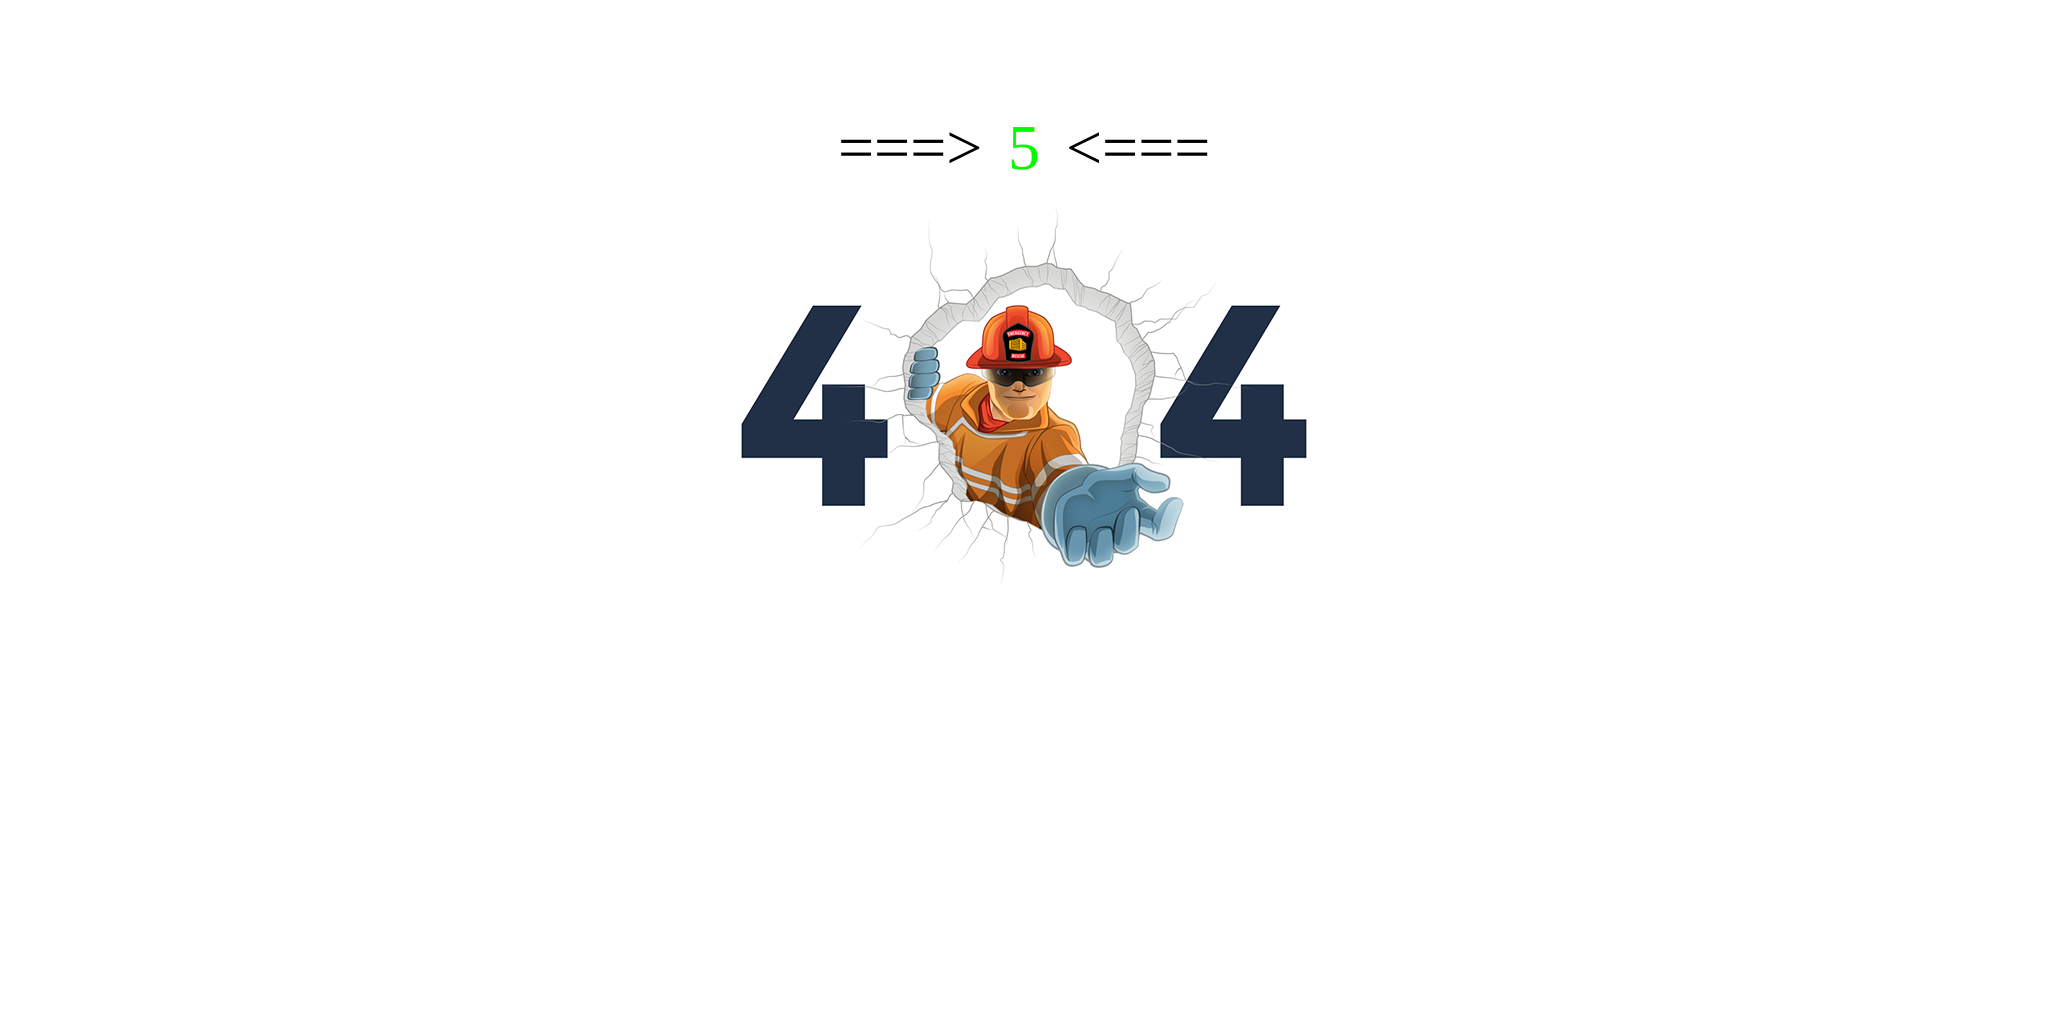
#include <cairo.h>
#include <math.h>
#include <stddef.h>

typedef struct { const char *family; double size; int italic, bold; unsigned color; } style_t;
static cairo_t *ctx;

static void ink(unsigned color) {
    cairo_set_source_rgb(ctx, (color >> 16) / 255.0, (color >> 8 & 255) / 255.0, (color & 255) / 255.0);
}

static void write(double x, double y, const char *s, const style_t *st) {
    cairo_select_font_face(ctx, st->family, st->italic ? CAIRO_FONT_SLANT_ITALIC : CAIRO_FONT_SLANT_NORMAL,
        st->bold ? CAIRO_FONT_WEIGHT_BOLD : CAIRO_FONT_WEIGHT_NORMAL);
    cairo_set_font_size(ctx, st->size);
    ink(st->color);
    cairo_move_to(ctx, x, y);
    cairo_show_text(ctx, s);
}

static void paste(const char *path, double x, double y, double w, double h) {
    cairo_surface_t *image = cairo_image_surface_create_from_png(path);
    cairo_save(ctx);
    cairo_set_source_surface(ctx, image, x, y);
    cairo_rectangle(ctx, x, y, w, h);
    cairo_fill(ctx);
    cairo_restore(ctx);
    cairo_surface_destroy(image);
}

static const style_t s1 = {"Liberation Serif", 64, 0, 0, 0x000000};
static const style_t s2 = {"Liberation Serif", 64, 0, 0, 0x05fa00};

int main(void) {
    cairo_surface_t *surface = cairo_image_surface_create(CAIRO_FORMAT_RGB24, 2048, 1030);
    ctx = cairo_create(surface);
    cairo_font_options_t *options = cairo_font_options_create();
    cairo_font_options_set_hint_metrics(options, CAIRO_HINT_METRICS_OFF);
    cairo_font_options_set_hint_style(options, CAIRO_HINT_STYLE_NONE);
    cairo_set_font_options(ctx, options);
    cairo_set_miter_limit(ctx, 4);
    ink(0xffffff);
    cairo_paint(ctx);
    write(838, 169, "===>", &s1);
    write(1008, 169, "5", &s2);
    write(1066, 169, "<===", &s1);
    paste("pic1.png", 741, 207, 566, 377);
    cairo_surface_write_to_png(surface, "screenshot.png");
    cairo_font_options_destroy(options);
    cairo_destroy(ctx);
    cairo_surface_destroy(surface);
    return 0;
}
